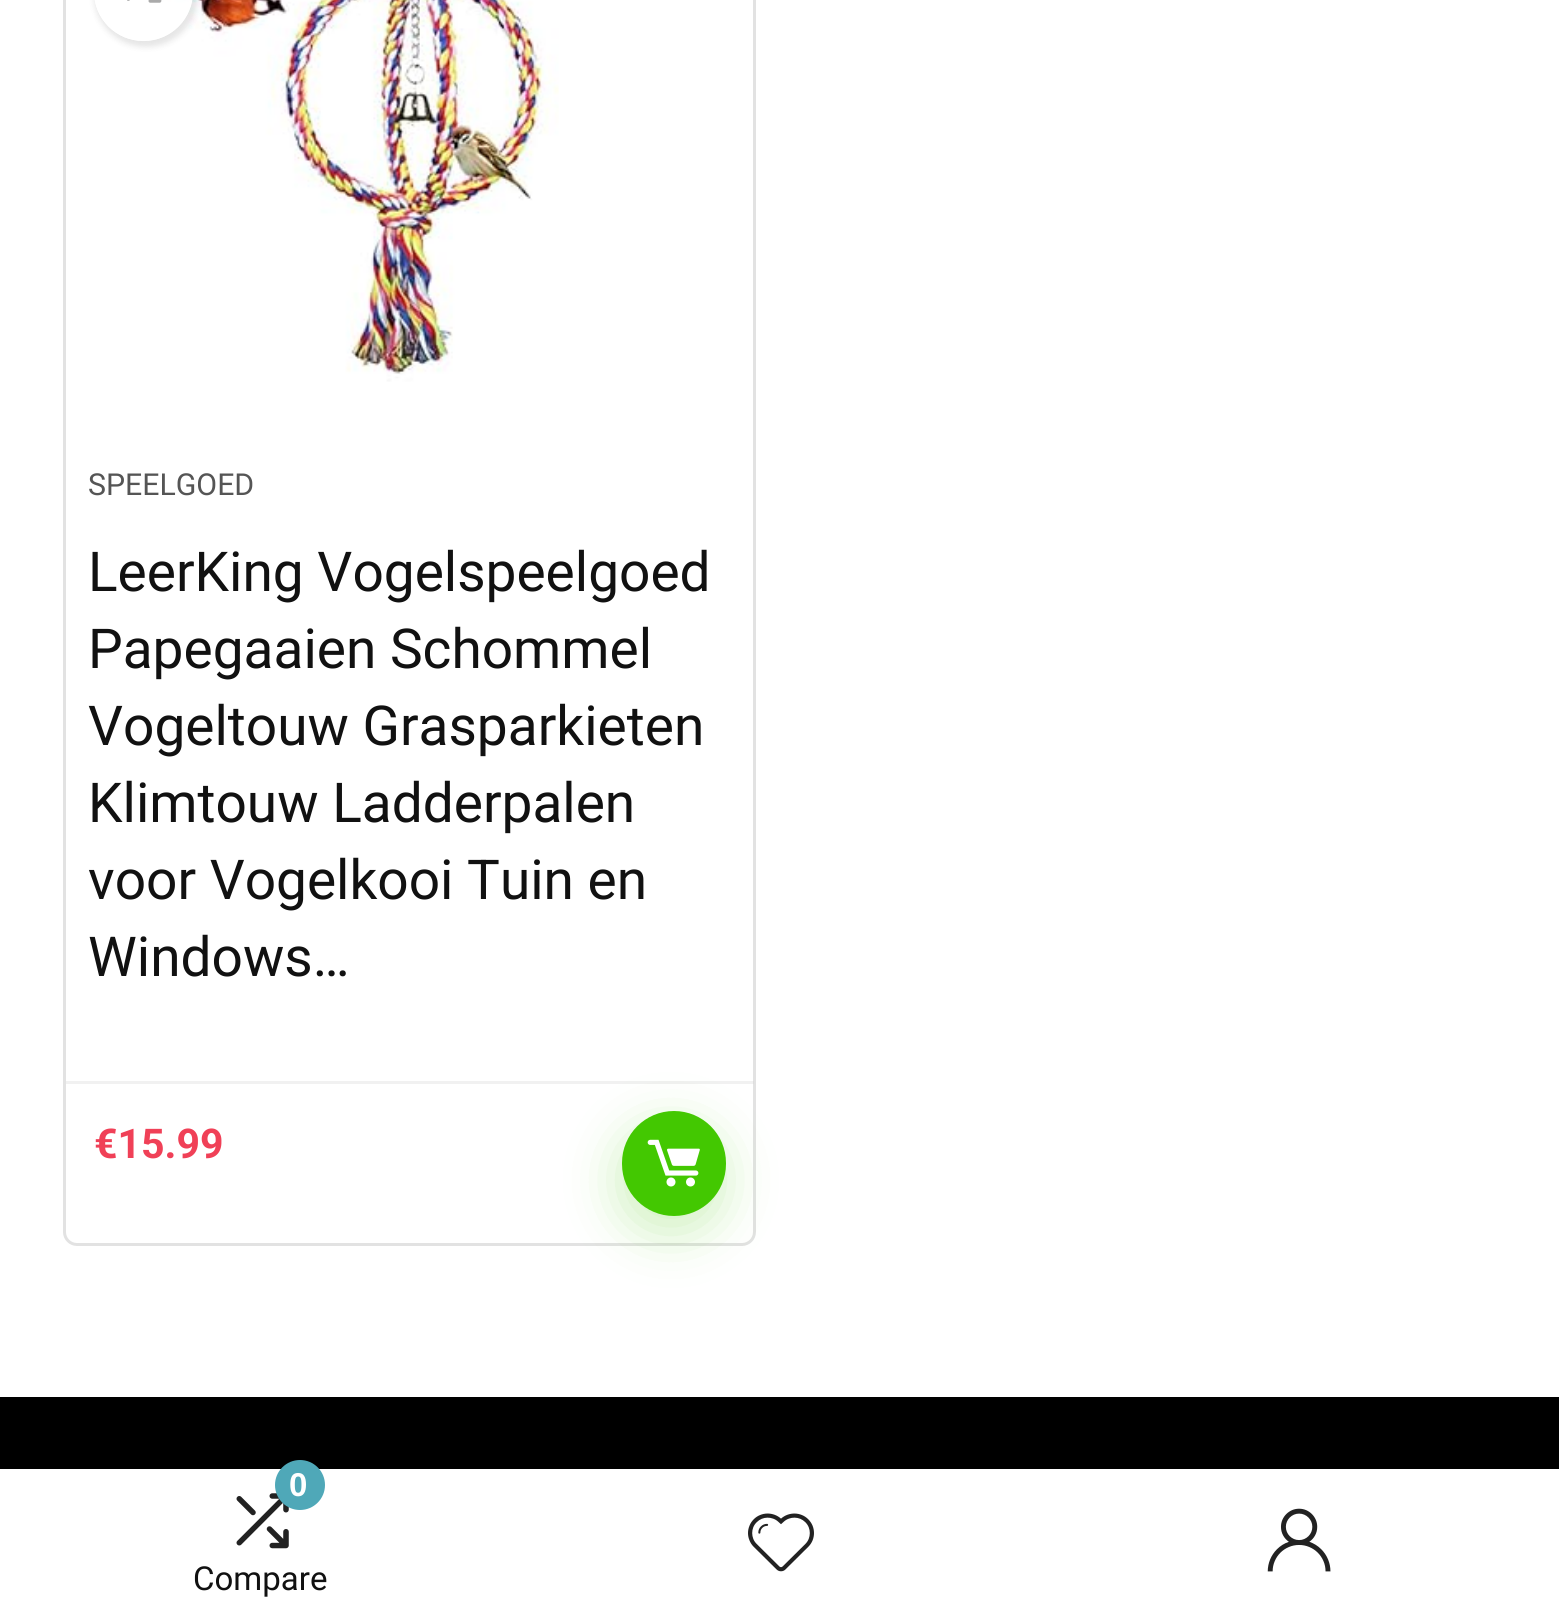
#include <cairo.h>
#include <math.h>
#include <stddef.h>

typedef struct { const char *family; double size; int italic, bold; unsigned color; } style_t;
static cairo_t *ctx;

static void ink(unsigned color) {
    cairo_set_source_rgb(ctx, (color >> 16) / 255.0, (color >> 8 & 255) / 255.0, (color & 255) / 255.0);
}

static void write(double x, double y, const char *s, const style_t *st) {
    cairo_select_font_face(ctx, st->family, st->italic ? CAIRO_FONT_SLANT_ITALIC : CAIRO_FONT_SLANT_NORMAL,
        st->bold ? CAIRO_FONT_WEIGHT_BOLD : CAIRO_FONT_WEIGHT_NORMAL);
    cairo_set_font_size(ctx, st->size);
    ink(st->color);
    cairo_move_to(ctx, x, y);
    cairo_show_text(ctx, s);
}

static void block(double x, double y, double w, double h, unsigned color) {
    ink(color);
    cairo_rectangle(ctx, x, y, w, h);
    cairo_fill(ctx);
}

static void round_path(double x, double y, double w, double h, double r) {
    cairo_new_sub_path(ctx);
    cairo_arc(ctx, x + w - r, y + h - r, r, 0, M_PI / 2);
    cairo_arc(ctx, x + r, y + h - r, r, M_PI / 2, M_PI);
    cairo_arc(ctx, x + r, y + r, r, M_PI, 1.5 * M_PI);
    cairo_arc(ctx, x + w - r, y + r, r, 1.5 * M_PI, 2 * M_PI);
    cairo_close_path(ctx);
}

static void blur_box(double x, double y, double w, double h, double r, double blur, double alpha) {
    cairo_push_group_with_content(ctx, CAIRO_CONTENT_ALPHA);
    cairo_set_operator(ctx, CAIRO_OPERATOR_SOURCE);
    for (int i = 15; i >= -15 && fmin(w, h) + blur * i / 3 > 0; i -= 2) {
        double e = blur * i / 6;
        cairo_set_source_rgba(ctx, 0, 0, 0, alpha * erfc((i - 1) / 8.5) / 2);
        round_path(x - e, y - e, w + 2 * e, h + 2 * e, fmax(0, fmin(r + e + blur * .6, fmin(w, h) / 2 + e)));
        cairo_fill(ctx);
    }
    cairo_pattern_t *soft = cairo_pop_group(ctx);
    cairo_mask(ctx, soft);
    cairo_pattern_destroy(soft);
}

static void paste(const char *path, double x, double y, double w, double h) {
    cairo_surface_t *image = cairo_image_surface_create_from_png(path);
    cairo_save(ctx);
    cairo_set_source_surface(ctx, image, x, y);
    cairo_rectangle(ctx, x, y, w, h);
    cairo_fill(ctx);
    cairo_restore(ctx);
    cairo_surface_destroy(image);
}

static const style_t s1 = {"Roboto", 30.25, 0, 0, 0x555555};
static const style_t s2 = {"Roboto", 55, 0, 0, 0x111111};
static const style_t s3 = {"Roboto", 41, 0, 1, 0xf04057};
static const style_t s4 = {"Liberation Sans", 33, 0, 1, 0xffffff};
static const style_t s5 = {"Roboto", 33, 0, 0, 0x111111};

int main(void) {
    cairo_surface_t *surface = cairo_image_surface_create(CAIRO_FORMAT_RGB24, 1559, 1618);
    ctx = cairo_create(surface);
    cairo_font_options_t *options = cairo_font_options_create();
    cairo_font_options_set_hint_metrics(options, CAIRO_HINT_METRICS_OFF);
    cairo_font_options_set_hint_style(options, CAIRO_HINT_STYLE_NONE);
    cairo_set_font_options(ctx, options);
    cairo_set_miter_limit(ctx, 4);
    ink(0xffffff);
    cairo_paint(ctx);
    round_path(64.5, -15.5, 690, 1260, 12.5);
    ink(0xe2e2e2);
    cairo_set_line_width(ctx, 3);
    cairo_stroke(ctx);
    paste("pic2.png", 162, 0, 397, 382);
    cairo_save(ctx);
    cairo_set_fill_rule(ctx, CAIRO_FILL_RULE_EVEN_ODD);
    cairo_new_path(ctx);
    cairo_move_to(ctx, 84, 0);
    cairo_line_to(ctx, 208, 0);
    cairo_line_to(ctx, 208, 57);
    cairo_line_to(ctx, 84, 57);
    cairo_close_path(ctx);
    cairo_move_to(ctx, 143.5, -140);
    cairo_curve_to(ctx, 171, -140, 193, -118, 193, -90.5);
    cairo_line_to(ctx, 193, -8.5);
    cairo_curve_to(ctx, 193, 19, 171, 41, 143.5, 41);
    cairo_curve_to(ctx, 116, 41, 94, 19, 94, -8.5);
    cairo_line_to(ctx, 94, -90.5);
    cairo_curve_to(ctx, 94, -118, 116, -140, 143.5, -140);
    cairo_close_path(ctx);
    cairo_clip(ctx);
    ink(0x000000);
    blur_box(94, -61, 104, 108, 52, 3, 0.1);
    cairo_restore(ctx);
    cairo_set_source_rgba(ctx, 1, 1, 1, 0.78);
    round_path(94, -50, 99, 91, 49.5);
    cairo_fill(ctx);
    paste("pic1.png", 127, 0, 35, 3);
    write(88, 495, "SPEELGOED", &s1);
    write(88, 591, "LeerKing Vogelspeelgoed", &s2);
    write(88, 668, "Papegaaien Schommel", &s2);
    write(88, 745, "Vogeltouw Grasparkieten", &s2);
    write(88, 822, "Klimtouw Ladderpalen", &s2);
    write(88, 899, "voor Vogelkooi Tuin en", &s2);
    write(88, 976, "Windows…", &s2);
    cairo_set_source_rgba(ctx, 0.808, 0.808, 0.808, 0.3);
    cairo_rectangle(ctx, 66, 1081, 688, 3);
    cairo_fill(ctx);
    write(94, 1158, "€15.99", &s3);
    ink(0x43c801);
    blur_box(619, 1128, 104, 104, 52, 26, 0.25);
    ink(0x43c801);
    round_path(622, 1111, 104, 105, 52);
    cairo_fill(ctx);
    paste("pic3.png", 647, 1139, 53, 48);
    block(0, 1397, 1559, 72, 0x000000);
    paste("pic4.png", 236, 1493, 53, 56);
    ink(0x4fa8b8);
    cairo_arc(ctx, 300, 1485, 25, 0, 2 * M_PI);
    cairo_fill(ctx);
    write(289, 1496, "0", &s4);
    write(193, 1590, "Compare", &s5);
    paste("pic5.png", 748, 1513, 66, 59);
    paste("pic6.png", 1267, 1508, 64, 64);
    cairo_surface_write_to_png(surface, "screenshot.png");
    cairo_font_options_destroy(options);
    cairo_destroy(ctx);
    cairo_surface_destroy(surface);
    return 0;
}
